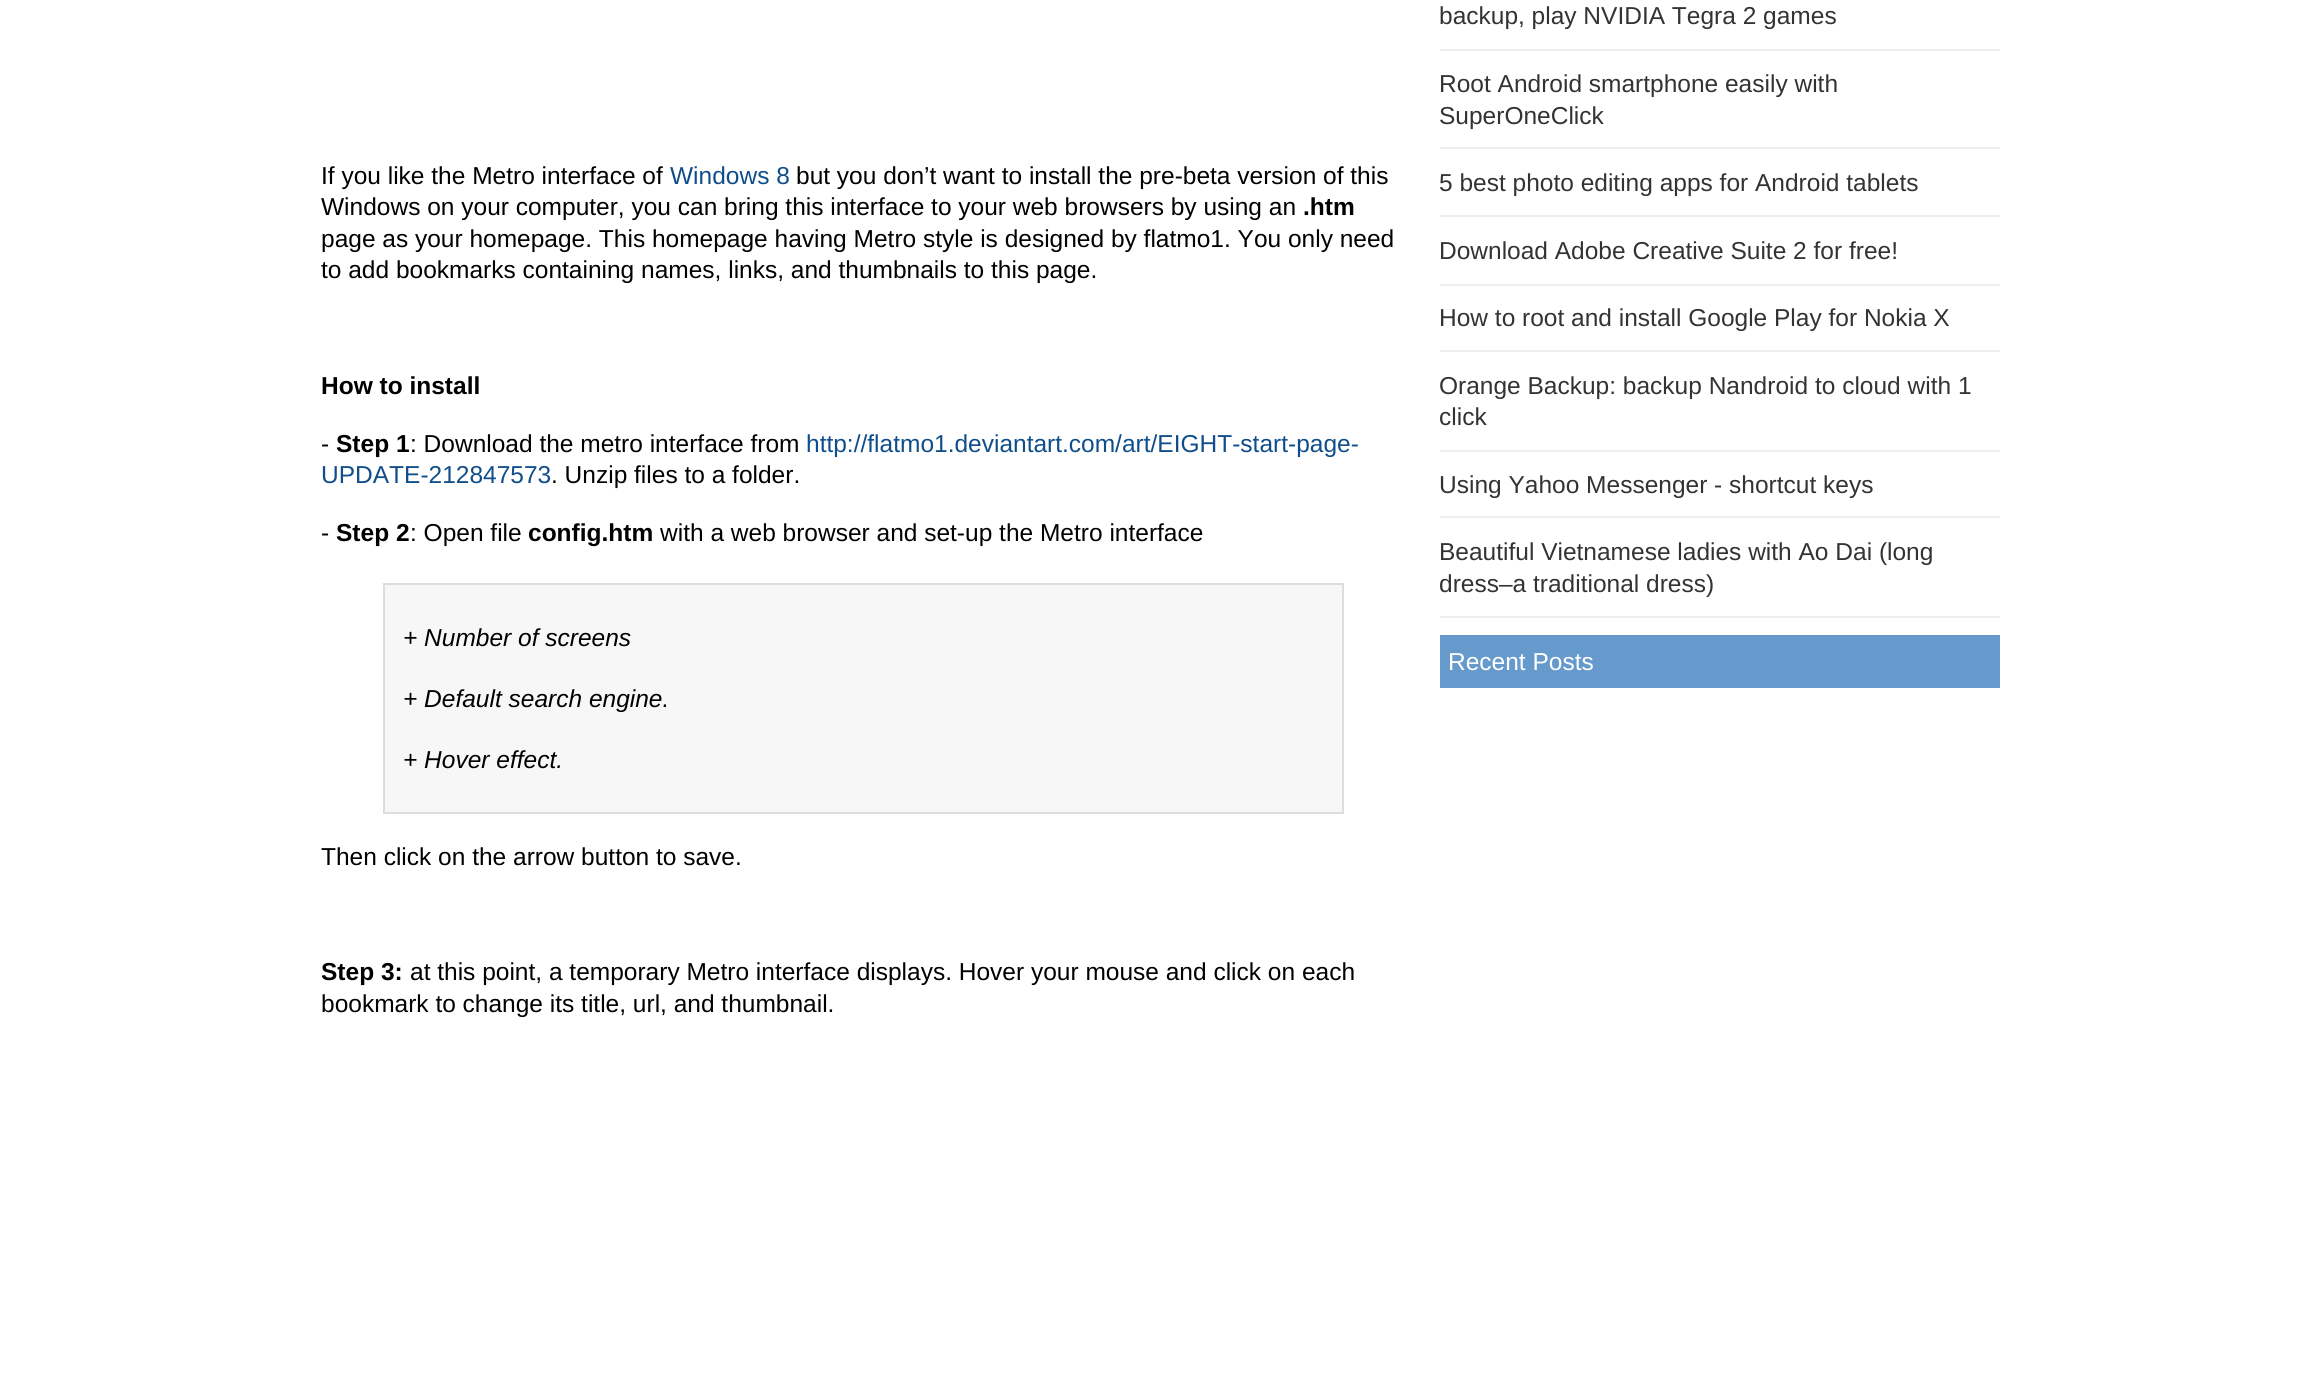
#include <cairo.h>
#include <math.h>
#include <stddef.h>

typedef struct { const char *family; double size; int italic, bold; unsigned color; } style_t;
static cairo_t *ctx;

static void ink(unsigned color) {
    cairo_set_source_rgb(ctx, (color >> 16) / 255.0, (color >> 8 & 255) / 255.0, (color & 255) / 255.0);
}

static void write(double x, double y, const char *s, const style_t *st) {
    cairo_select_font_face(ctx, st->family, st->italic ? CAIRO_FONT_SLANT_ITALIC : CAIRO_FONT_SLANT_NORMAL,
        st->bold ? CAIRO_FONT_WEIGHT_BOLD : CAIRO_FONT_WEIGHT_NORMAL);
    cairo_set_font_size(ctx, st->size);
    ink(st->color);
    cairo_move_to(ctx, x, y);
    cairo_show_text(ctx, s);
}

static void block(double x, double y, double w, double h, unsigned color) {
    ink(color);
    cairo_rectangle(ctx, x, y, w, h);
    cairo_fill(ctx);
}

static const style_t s1 = {"Liberation Sans", 24.5, 0, 0, 0x000000};
static const style_t s2 = {"Liberation Sans", 24.5, 0, 0, 0x104e8b};
static const style_t s3 = {"Liberation Sans", 24.5, 0, 1, 0x000000};
static const style_t s4 = {"Liberation Sans", 24.5, 1, 0, 0x000000};
static const style_t s5 = {"Liberation Sans", 24.5, 0, 0, 0x333333};
static const style_t s6 = {"Liberation Sans", 24.5, 0, 0, 0xffffff};

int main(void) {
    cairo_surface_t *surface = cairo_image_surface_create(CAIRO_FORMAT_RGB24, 2322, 1386);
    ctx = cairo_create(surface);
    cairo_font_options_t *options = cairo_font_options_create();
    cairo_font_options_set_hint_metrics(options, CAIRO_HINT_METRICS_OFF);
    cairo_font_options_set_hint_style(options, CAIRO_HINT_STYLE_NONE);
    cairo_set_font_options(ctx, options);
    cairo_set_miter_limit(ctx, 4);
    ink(0xffffff);
    cairo_paint(ctx);
    write(321, 184, "If you like the Metro interface of", &s1);
    write(670, 184, "Windows 8", &s2);
    write(796, 184, "but you don’t want to install the pre-beta version of this", &s1);
    write(321, 215, "Windows on your computer, you can bring this interface to your web browsers by using an", &s1);
    write(1303, 215, ".htm", &s3);
    write(321, 247, "page as your homepage. This homepage having Metro style is designed by flatmo1. You only need", &s1);
    write(321, 278, "to add bookmarks containing names, links, and thumbnails to this page.", &s1);
    write(321, 394, "How to install", &s3);
    write(321, 452, "-", &s1);
    write(336, 452, "Step 1", &s3);
    write(410, 452, ": Download the metro interface from", &s1);
    write(806, 452, "http://flatmo1.deviantart.com/art/EIGHT-start-page-", &s2);
    write(321, 483, "UPDATE-212847573", &s2);
    write(551, 483, ". Unzip files to a folder.", &s1);
    write(321, 541, "-", &s1);
    write(336, 541, "Step 2", &s3);
    write(410, 541, ": Open file", &s1);
    write(528, 541, "config.htm", &s3);
    write(660, 541, "with a web browser and set-up the Metro interface", &s1);
    ink(0xf7f7f7);
    cairo_rectangle(ctx, 384, 584, 959, 229);
    cairo_fill_preserve(ctx);
    ink(0xdddddd);
    cairo_stroke(ctx);
    write(403, 646, "+ Number of screens", &s4);
    write(403, 707, "+ Default search engine.", &s4);
    write(403, 768, "+ Hover effect.", &s4);
    write(321, 865, "Then click on the arrow button to save.", &s1);
    write(321, 980, "Step 3:", &s3);
    write(410, 980, "at this point, a temporary Metro interface displays. Hover your mouse and click on each", &s1);
    write(321, 1012, "bookmark to change its title, url, and thumbnail.", &s1);
    block(1440, 49, 560, 2, 0xeeeeee);
    write(1439, 24, "backup, play NVIDIA Tegra 2 games", &s5);
    block(1440, 147, 560, 2, 0xeeeeee);
    write(1439, 92, "Root Android smartphone easily with", &s5);
    write(1439, 124, "SuperOneClick", &s5);
    block(1440, 215, 560, 2, 0xeeeeee);
    write(1439, 191, "5 best photo editing apps for Android tablets", &s5);
    block(1440, 284, 560, 2, 0xeeeeee);
    write(1439, 259, "Download Adobe Creative Suite 2 for free!", &s5);
    block(1440, 350, 560, 2, 0xeeeeee);
    write(1439, 326, "How to root and install Google Play for Nokia X", &s5);
    block(1440, 450, 560, 2, 0xeeeeee);
    write(1439, 394, "Orange Backup: backup Nandroid to cloud with 1", &s5);
    write(1439, 425, "click", &s5);
    block(1440, 516, 560, 2, 0xeeeeee);
    write(1439, 493, "Using Yahoo Messenger - shortcut keys", &s5);
    block(1440, 616, 560, 2, 0xeeeeee);
    write(1439, 560, "Beautiful Vietnamese ladies with Ao Dai (long", &s5);
    write(1439, 592, "dress–a traditional dress)", &s5);
    block(1440, 635, 560, 53, 0x6699cc);
    write(1448, 670, "Recent Posts", &s6);
    cairo_surface_write_to_png(surface, "screenshot.png");
    cairo_font_options_destroy(options);
    cairo_destroy(ctx);
    cairo_surface_destroy(surface);
    return 0;
}
